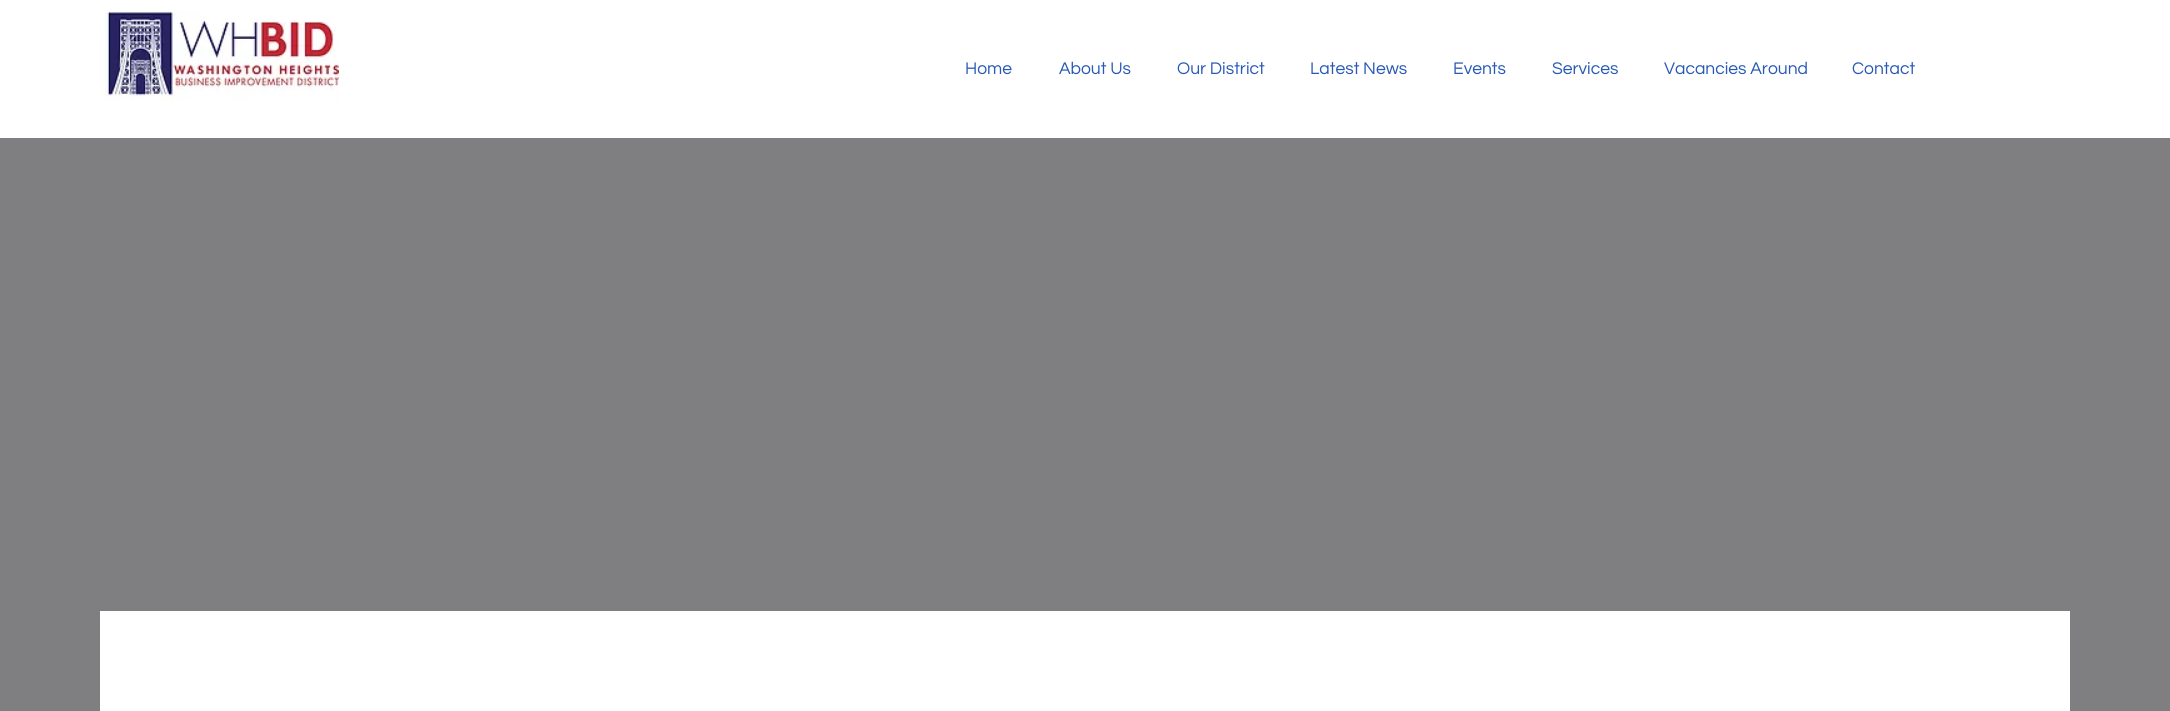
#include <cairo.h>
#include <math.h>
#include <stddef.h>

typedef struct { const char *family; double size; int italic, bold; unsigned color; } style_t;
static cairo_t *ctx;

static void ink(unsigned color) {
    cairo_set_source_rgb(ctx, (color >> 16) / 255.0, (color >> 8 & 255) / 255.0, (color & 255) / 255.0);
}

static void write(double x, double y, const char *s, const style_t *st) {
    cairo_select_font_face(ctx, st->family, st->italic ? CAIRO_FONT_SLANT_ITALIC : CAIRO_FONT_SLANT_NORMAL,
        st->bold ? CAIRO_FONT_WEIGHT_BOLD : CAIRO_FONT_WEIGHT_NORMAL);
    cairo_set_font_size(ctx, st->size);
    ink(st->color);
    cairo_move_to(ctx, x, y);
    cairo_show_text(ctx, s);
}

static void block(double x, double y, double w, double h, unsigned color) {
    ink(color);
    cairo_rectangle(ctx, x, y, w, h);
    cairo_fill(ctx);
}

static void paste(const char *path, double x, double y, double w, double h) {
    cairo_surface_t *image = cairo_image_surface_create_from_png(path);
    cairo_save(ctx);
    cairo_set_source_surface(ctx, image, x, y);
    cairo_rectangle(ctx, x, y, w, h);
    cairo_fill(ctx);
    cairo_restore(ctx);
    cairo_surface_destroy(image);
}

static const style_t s1 = {"Questrial", 17.5, 0, 0, 0x2859b6};

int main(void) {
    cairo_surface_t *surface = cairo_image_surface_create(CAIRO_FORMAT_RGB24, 2170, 711);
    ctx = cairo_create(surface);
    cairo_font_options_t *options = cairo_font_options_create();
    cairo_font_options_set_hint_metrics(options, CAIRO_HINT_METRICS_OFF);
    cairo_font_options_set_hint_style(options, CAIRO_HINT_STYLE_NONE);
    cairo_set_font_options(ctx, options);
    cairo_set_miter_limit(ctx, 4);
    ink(0xffffff);
    cairo_paint(ctx);
    paste("pic1.png", 100, 10, 239, 91);
    write(965, 74, "Home", &s1);
    write(1059, 74, "About Us", &s1);
    write(1177, 74, "Our District", &s1);
    write(1310, 74, "Latest News", &s1);
    write(1453, 74, "Events", &s1);
    write(1552, 74, "Services", &s1);
    write(1664, 74, "Vacancies Around", &s1);
    write(1852, 74, "Contact", &s1);
    block(0, 138, 2170, 573, 0x7f7e81);
    block(100, 611, 1970, 100, 0xffffff);
    cairo_surface_write_to_png(surface, "screenshot.png");
    cairo_font_options_destroy(options);
    cairo_destroy(ctx);
    cairo_surface_destroy(surface);
    return 0;
}
